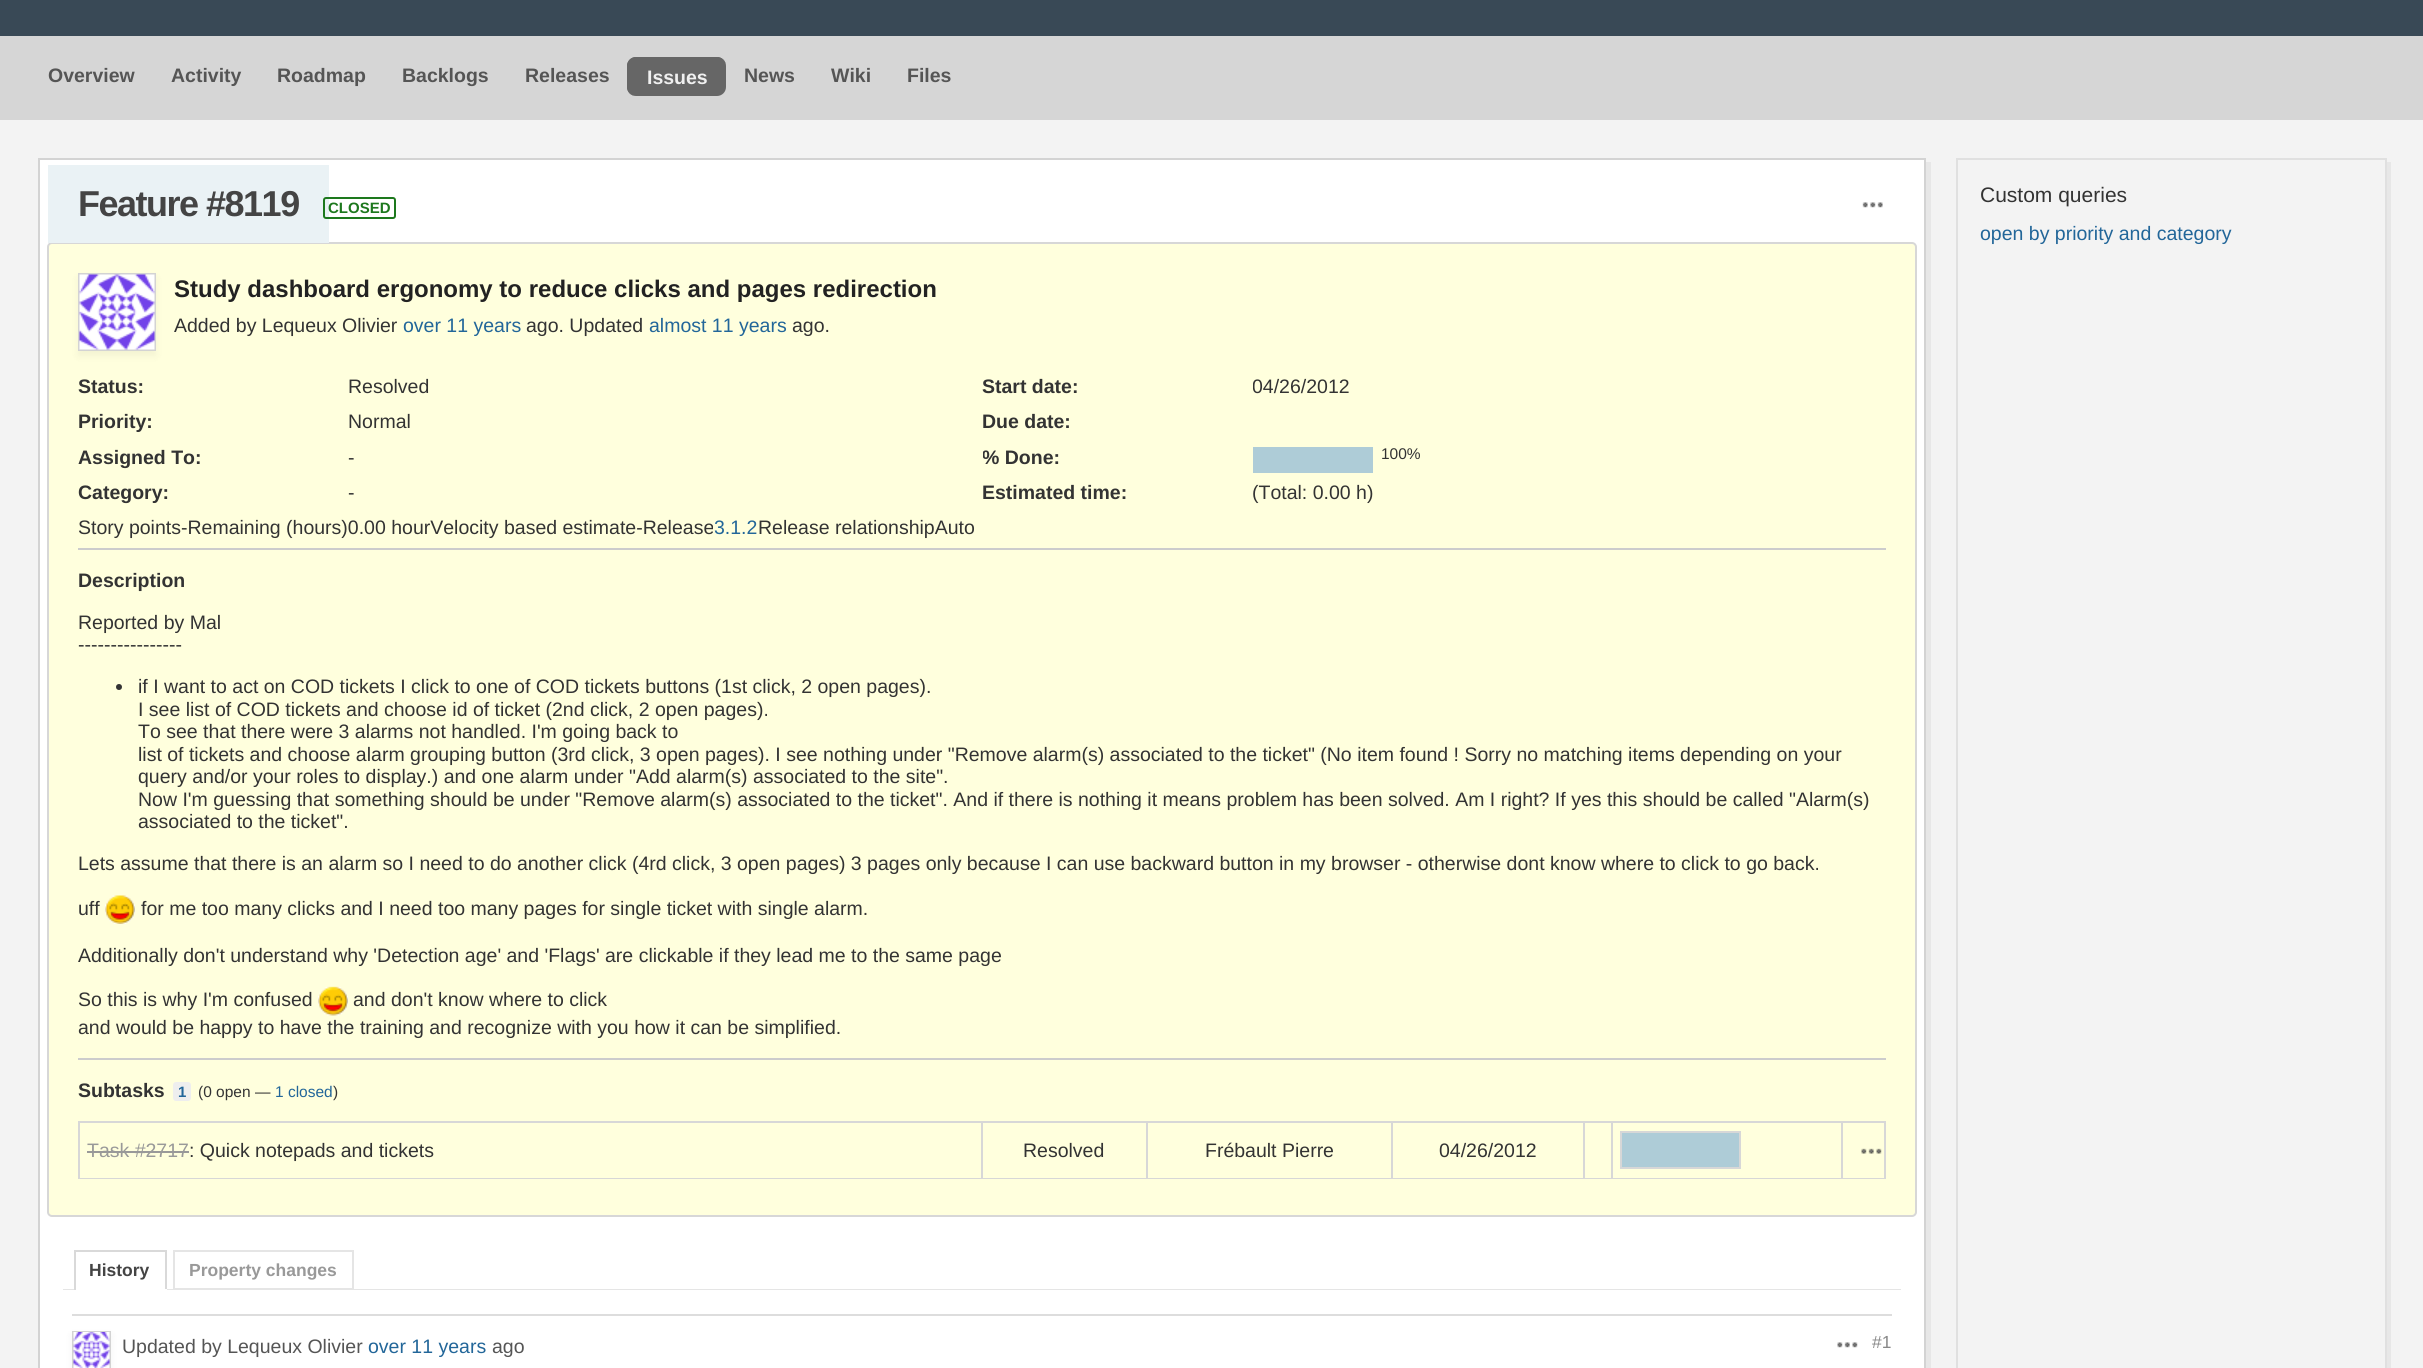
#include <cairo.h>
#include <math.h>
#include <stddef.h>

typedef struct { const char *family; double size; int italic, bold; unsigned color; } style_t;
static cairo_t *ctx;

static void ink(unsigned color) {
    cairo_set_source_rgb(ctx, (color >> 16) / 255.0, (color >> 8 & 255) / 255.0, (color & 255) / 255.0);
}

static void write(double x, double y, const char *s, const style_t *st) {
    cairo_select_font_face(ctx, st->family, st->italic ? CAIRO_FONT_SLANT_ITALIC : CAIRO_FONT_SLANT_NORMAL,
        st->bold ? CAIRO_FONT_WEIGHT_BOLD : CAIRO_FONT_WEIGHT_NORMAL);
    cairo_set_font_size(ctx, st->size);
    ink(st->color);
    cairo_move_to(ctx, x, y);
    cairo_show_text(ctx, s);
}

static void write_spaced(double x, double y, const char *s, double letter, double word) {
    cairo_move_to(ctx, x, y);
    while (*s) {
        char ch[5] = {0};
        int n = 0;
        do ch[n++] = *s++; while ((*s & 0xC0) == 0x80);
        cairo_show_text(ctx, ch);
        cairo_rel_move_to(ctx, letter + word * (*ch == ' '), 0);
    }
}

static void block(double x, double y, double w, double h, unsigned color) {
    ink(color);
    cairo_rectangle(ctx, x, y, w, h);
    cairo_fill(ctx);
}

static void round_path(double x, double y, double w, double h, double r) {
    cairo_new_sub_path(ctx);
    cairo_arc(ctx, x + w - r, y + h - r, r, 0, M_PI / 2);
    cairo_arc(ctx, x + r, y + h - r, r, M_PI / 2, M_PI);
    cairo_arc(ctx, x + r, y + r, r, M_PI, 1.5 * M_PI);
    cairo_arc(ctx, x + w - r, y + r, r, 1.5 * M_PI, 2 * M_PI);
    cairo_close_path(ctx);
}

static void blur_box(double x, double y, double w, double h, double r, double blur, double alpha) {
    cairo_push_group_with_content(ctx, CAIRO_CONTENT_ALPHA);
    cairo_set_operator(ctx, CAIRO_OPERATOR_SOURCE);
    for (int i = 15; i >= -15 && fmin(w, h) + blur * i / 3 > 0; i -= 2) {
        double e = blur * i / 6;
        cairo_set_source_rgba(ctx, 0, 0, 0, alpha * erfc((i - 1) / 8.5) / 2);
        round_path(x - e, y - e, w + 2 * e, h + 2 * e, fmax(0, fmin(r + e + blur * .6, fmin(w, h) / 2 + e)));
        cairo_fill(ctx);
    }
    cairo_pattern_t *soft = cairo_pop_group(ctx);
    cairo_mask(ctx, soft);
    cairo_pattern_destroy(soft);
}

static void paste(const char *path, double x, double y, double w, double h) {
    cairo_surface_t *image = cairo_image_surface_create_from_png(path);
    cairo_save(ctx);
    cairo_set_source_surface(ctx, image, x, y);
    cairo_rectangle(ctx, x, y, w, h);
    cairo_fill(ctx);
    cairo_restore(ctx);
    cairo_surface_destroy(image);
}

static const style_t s1 = {"Liberation Sans", 19.5, 0, 1, 0x555555};
static const style_t s2 = {"Liberation Sans", 19.5, 0, 1, 0xf0f0f0};
static const style_t s3 = {"Liberation Sans", 15, 0, 1, 0x1d781d};
static const style_t s4 = {"Liberation Sans", 24, 0, 1, 0x222222};
static const style_t s5 = {"Liberation Sans", 19.5, 0, 0, 0x333333};
static const style_t s6 = {"Liberation Sans", 19.5, 0, 0, 0x226699};
static const style_t s7 = {"Liberation Sans", 19.5, 0, 1, 0x333333};
static const style_t s8 = {"Liberation Sans", 15.5, 0, 0, 0x333333};
static const style_t s9 = {"Liberation Sans", 15, 0, 1, 0x226699};
static const style_t s10 = {"Liberation Sans", 15.5, 0, 0, 0x226699};
static const style_t s11 = {"Liberation Sans", 19.5, 0, 0, 0x999999};
static const style_t s12 = {"Liberation Sans", 17.5, 0, 1, 0x444444};
static const style_t s13 = {"Liberation Sans", 17.5, 0, 1, 0x999999};
static const style_t s14 = {"Liberation Sans", 19.5, 0, 0, 0x555555};
static const style_t s15 = {"Liberation Sans", 17.5, 0, 0, 0x888888};
static const style_t s16 = {"Liberation Sans", 21, 0, 0, 0x333333};

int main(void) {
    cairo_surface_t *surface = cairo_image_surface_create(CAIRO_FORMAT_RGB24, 2423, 1368);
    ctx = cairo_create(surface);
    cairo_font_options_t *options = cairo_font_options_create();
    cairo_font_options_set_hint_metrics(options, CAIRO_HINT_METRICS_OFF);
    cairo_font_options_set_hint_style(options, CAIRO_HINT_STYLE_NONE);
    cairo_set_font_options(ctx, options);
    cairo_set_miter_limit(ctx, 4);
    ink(0xf3f3f3);
    cairo_paint(ctx);
    block(0, 0, 2423, 36, 0x394956);
    block(0, 36, 2423, 84, 0xd6d6d6);
    write(48, 82, "Overview", &s1);
    write(171, 82, "Activity", &s1);
    write(277, 82, "Roadmap", &s1);
    write(402, 82, "Backlogs", &s1);
    write(525, 82, "Releases", &s1);
    ink(0x666666);
    round_path(627, 57, 99, 39, 9);
    cairo_fill(ctx);
    cairo_set_fill_rule(ctx, CAIRO_FILL_RULE_EVEN_ODD);
    cairo_new_path(ctx);
    cairo_move_to(ctx, 636, 57);
    cairo_line_to(ctx, 717, 57);
    cairo_curve_to(ctx, 722, 57, 726, 61, 726, 66);
    cairo_line_to(ctx, 726, 87);
    cairo_curve_to(ctx, 726, 92, 722, 96, 717, 96);
    cairo_line_to(ctx, 636, 96);
    cairo_curve_to(ctx, 631, 96, 627, 92, 627, 87);
    cairo_line_to(ctx, 627, 66);
    cairo_curve_to(ctx, 627, 61, 631, 57, 636, 57);
    cairo_close_path(ctx);
    cairo_move_to(ctx, 636, 58);
    cairo_line_to(ctx, 717, 58);
    cairo_curve_to(ctx, 722, 58, 726, 62, 726, 66);
    cairo_line_to(ctx, 726, 87);
    cairo_curve_to(ctx, 726, 92, 722, 96, 717, 96);
    cairo_line_to(ctx, 636, 96);
    cairo_curve_to(ctx, 632, 96, 628, 92, 628, 87);
    cairo_line_to(ctx, 628, 66);
    cairo_curve_to(ctx, 628, 62, 632, 58, 636, 58);
    cairo_close_path(ctx);
    cairo_fill(ctx);
    write(647, 84, "Issues", &s2);
    write(744, 82, "News", &s1);
    write(831, 82, "Wiki", &s1);
    write(907, 82, "Files", &s1);
    ink(0xe7e7e7);
    cairo_set_fill_rule(ctx, CAIRO_FILL_RULE_WINDING);
    cairo_new_path(ctx);
    cairo_move_to(ctx, 42, 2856);
    cairo_line_to(ctx, 42, 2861);
    cairo_line_to(ctx, 1931, 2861);
    cairo_line_to(ctx, 1931, 162);
    cairo_line_to(ctx, 1926, 162);
    cairo_line_to(ctx, 1926, 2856);
    cairo_close_path(ctx);
    cairo_fill(ctx);
    ink(0xffffff);
    cairo_rectangle(ctx, 39, 159, 1886, 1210);
    cairo_fill_preserve(ctx);
    ink(0xd3d3d3);
    cairo_stroke(ctx);
    ink(0xffffdd);
    round_path(48, 243, 1868, 973, 4);
    cairo_fill_preserve(ctx);
    ink(0xd7d7d7);
    cairo_stroke(ctx);
    block(48, 165, 281, 78, 0xeaf2f5);
    cairo_set_font_size(ctx, 36);
    ink(0x444444);
    write_spaced(78, 216, "Feature #8119", -1.5, 0);
    round_path(324, 198, 71, 20, 2);
    ink(0x1d781d);
    cairo_stroke(ctx);
    write(328, 213, "CLOSED", &s3);
    paste("pic1.png", 1862, 202, 21, 6);
    ink(0x000000);
    blur_box(78, 278, 78, 78, 0, 4, 0.05);
    cairo_rectangle(ctx, 79, 274, 76, 76);
    ink(0xd3d3d3);
    cairo_stroke(ctx);
    paste("pic2.png", 79, 274, 76, 76);
    write(174, 297, "Study dashboard ergonomy to reduce clicks and pages redirection", &s4);
    write(174, 332, "Added by Lequeux Olivier", &s5);
    write(403, 332, "over 11 years", &s6);
    write(526, 332, "ago. Updated", &s5);
    write(649, 332, "almost 11 years", &s6);
    write(792, 332, "ago.", &s5);
    write(78, 393, "Status:", &s7);
    write(348, 393, "Resolved", &s5);
    write(78, 428, "Priority:", &s7);
    write(348, 428, "Normal", &s5);
    write(78, 464, "Assigned To:", &s7);
    write(348, 464, "-", &s5);
    write(78, 499, "Category:", &s7);
    write(348, 499, "-", &s5);
    write(982, 393, "Start date:", &s7);
    cairo_save(ctx);
    cairo_rectangle(ctx, 1253, 375, 625, 23);
    cairo_clip(ctx);
    write(1252, 393, "04/26/2012", &s5);
    cairo_restore(ctx);
    write(982, 428, "Due date:", &s7);
    cairo_save(ctx);
    cairo_rectangle(ctx, 983, 446, 255, 22);
    cairo_clip(ctx);
    write(982, 464, "% Done:", &s7);
    cairo_restore(ctx);
    block(1253, 447, 120, 26, 0xaeccd7);
    write(1381, 459, "100%", &s8);
    write(982, 499, "Estimated time:", &s7);
    write(1252, 499, "(Total: 0.00 h)", &s5);
    write(78, 534, "Story points-Remaining (hours)0.00 hourVelocity based estimate-Release", &s5);
    write(714, 534, "3.1.2", &s6);
    write(758, 534, "Release relationshipAuto", &s5);
    block(78, 548, 1808, 2, 0xcccccc);
    write(78, 587, "Description", &s7);
    write(78, 629, "Reported by Mal", &s5);
    write(78, 651, "----------------", &s5);
    cairo_new_path(ctx);
    cairo_arc(ctx, 119, 687, 3, 0, 2 * M_PI);
    cairo_fill(ctx);
    write(138, 693, "if I want to act on COD tickets I click to one of COD tickets buttons (1st click, 2 open pages).", &s5);
    write(138, 716, "I see list of COD tickets and choose id of ticket (2nd click, 2 open pages).", &s5);
    write(138, 738, "To see that there were 3 alarms not handled. I'm going back to", &s5);
    write(138, 761, "list of tickets and choose alarm grouping button (3rd click, 3 open pages). I see nothing under \"Remove alarm(s) associated to the ticket\" (No item found ! Sorry no matching items depending on your", &s5);
    write(138, 783, "query and/or your roles to display.) and one alarm under \"Add alarm(s) associated to the site\".", &s5);
    write(138, 806, "Now I'm guessing that something should be under \"Remove alarm(s) associated to the ticket\". And if there is nothing it means problem has been solved. Am I right? If yes this should be called \"Alarm(s)", &s5);
    write(138, 828, "associated to the ticket\".", &s5);
    write(78, 870, "Lets assume that there is an alarm so I need to do another click (4rd click, 3 open pages) 3 pages only because I can use backward button in my browser - otherwise dont know where to click to go back.", &s5);
    write(78, 915, "uff", &s5);
    paste("pic3.png", 105, 895, 30, 29);
    write(141, 915, "for me too many clicks and I need too many pages for single ticket with single alarm.", &s5);
    write(78, 962, "Additionally don't understand why 'Detection age' and 'Flags' are clickable if they lead me to the same page", &s5);
    write(78, 1006, "So this is why I'm confused", &s5);
    paste("pic4.png", 318, 986, 30, 30);
    write(353, 1006, "and don't know where to click", &s5);
    write(78, 1034, "and would be happy to have the training and recognize with you how it can be simplified.", &s5);
    block(78, 1058, 1808, 2, 0xcccccc);
    write(78, 1097, "Subtasks", &s7);
    ink(0xeeeeee);
    round_path(173, 1082, 18, 19, 3);
    cairo_fill(ctx);
    write(178, 1097, "1", &s9);
    write(198, 1097, "(0 open —", &s8);
    write(275, 1097, "1 closed", &s10);
    write(333, 1097, ")", &s8);
    block(1841, 1121, 45, 2, 0xd7d7d7);
    block(1884, 1121, 2, 58, 0xd7d7d7);
    block(1841, 1178, 45, 1, 0xd7d7d7);
    block(1841, 1121, 2, 58, 0xd7d7d7);
    block(1611, 1121, 231, 2, 0xd7d7d7);
    block(1611, 1178, 231, 1, 0xd7d7d7);
    block(1611, 1121, 2, 58, 0xd7d7d7);
    block(1583, 1121, 30, 2, 0xd7d7d7);
    block(1583, 1178, 30, 1, 0xd7d7d7);
    block(1583, 1121, 2, 58, 0xd7d7d7);
    block(1391, 1121, 193, 2, 0xd7d7d7);
    block(1391, 1178, 193, 1, 0xd7d7d7);
    block(1391, 1121, 2, 58, 0xd7d7d7);
    block(1146, 1121, 246, 2, 0xd7d7d7);
    block(1146, 1178, 246, 1, 0xd7d7d7);
    block(1146, 1121, 2, 58, 0xd7d7d7);
    block(981, 1121, 167, 2, 0xd7d7d7);
    block(981, 1178, 167, 1, 0xd7d7d7);
    block(981, 1121, 2, 58, 0xd7d7d7);
    block(78, 1121, 905, 2, 0xd7d7d7);
    block(78, 1178, 905, 1, 0xd7d7d7);
    block(78, 1121, 2, 58, 0xd7d7d7);
    write(87, 1157, "Task #2717", &s11);
    block(87, 1151, 102, 2, 0x999999);
    write(189, 1157, ": Quick notepads and tickets", &s5);
    write(1023, 1157, "Resolved", &s5);
    write(1205, 1157, "Frébault Pierre", &s5);
    write(1439, 1157, "04/26/2012", &s5);
    block(1622, 1133, 117, 34, 0xaeccd7);
    block(1620, 1131, 120, 2, 0xd7d7d7);
    block(1739, 1131, 2, 38, 0xd7d7d7);
    block(1620, 1167, 120, 2, 0xd7d7d7);
    block(1620, 1131, 2, 38, 0xd7d7d7);
    paste("pic5.png", 1861, 1148, 21, 6);
    block(63, 1289, 1838, 1, 0xe5e5e5);
    block(74, 1250, 93, 2, 0xd9d9d9);
    block(165, 1250, 2, 40, 0xd9d9d9);
    block(74, 1289, 93, 1, 0xffffff);
    block(74, 1250, 2, 40, 0xd9d9d9);
    write(89, 1276, "History", &s12);
    cairo_rectangle(ctx, 174, 1251, 179, 38);
    ink(0xe5e5e5);
    cairo_stroke(ctx);
    write(189, 1276, "Property changes", &s13);
    block(72, 1314, 1820, 2, 0xdddddd);
    ink(0x000000);
    blur_box(72, 1335, 39, 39, 0, 4, 0.05);
    cairo_rectangle(ctx, 73, 1332, 37, 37);
    ink(0xd3d3d3);
    cairo_stroke(ctx);
    paste("pic6.png", 73, 1332, 37, 36);
    write(122, 1353, "Updated by Lequeux Olivier", &s14);
    write(368, 1353, "over 11 years", &s6);
    write(492, 1353, "ago", &s14);
    paste("pic7.png", 1837, 1342, 21, 6);
    write(1872, 1348, "#1", &s15);
    ink(0xe7e7e7);
    cairo_new_path(ctx);
    cairo_move_to(ctx, 1961, 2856);
    cairo_line_to(ctx, 1961, 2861);
    cairo_line_to(ctx, 2391, 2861);
    cairo_line_to(ctx, 2391, 162);
    cairo_line_to(ctx, 2386, 162);
    cairo_line_to(ctx, 2386, 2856);
    cairo_close_path(ctx);
    cairo_fill(ctx);
    cairo_rectangle(ctx, 1957, 159, 429, 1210);
    ink(0xe0e0e0);
    cairo_stroke(ctx);
    write(1980, 202, "Custom queries", &s16);
    write(1980, 240, "open by priority and category", &s6);
    cairo_surface_write_to_png(surface, "screenshot.png");
    cairo_font_options_destroy(options);
    cairo_destroy(ctx);
    cairo_surface_destroy(surface);
    return 0;
}
